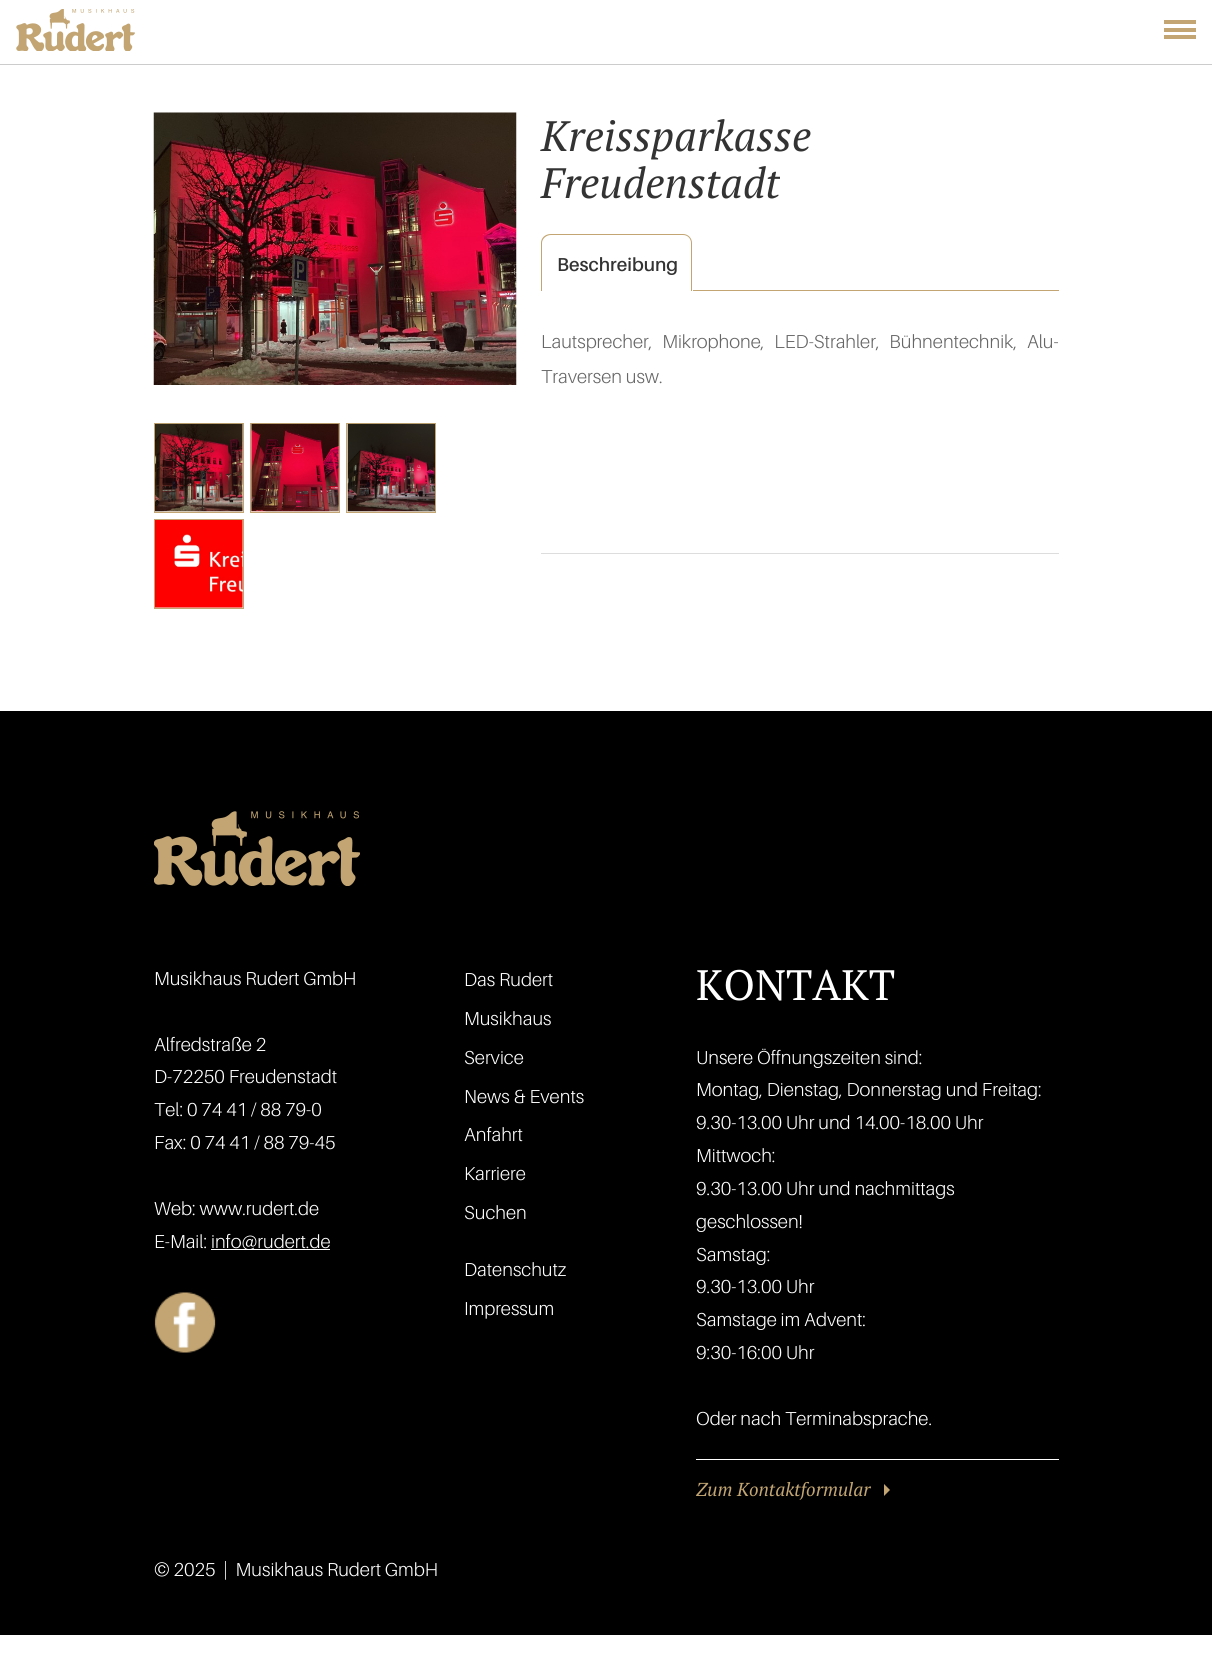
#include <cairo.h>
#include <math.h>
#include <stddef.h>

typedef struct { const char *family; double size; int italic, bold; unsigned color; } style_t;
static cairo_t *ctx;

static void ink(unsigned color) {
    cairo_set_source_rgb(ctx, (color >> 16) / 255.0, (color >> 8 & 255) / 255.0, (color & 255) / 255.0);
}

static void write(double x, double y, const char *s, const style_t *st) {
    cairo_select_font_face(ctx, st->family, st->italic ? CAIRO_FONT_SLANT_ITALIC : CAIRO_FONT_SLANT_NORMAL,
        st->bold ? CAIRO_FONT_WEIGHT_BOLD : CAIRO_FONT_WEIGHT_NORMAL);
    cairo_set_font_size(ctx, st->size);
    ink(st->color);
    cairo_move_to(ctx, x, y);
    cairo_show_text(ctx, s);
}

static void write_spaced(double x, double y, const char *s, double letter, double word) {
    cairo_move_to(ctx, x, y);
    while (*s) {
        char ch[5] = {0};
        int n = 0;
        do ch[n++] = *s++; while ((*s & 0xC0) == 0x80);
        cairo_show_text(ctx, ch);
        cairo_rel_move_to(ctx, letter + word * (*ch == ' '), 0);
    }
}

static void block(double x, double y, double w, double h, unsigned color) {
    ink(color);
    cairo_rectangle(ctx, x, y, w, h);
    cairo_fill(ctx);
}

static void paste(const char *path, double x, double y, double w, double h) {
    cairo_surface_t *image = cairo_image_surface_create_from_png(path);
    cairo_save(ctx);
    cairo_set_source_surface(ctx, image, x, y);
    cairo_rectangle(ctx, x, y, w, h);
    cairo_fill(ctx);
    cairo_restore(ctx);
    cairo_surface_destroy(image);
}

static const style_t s1 = {"PT Serif", 42.5, 1, 0, 0x333333};
static const style_t s2 = {"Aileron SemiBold", 18.75, 0, 0, 0x333333};
static const style_t s3 = {"Aileron Light", 18.75, 0, 0, 0x666666};
static const style_t s4 = {"Aileron Light", 18.75, 0, 0, 0xffffff};
static const style_t s5 = {"PT Serif", 42.5, 0, 0, 0xffffff};
static const style_t s6 = {"PT Serif", 18.75, 1, 0, 0xc2a572};

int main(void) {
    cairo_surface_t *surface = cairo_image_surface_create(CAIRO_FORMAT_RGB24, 1212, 1654);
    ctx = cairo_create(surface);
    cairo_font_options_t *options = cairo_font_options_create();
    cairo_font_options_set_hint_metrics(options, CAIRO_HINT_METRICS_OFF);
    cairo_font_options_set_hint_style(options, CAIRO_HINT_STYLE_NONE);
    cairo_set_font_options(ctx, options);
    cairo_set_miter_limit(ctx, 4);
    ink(0xffffff);
    cairo_paint(ctx);
    block(0, 64, 1212, 1, 0xcccccc);
    paste("pic1.png", 16, 9, 119, 42);
    block(1164, 20, 32, 4, 0xc2a572);
    block(1164, 28, 32, 4, 0xc2a572);
    block(1164, 35, 32, 4, 0xc2a572);
    paste("pic2.png", 153, 112, 364, 273);
    ink(0xf7efe0);
    cairo_rectangle(ctx, 154.5, 423.5, 89, 89);
    cairo_fill_preserve(ctx);
    ink(0xc2a572);
    cairo_set_line_width(ctx, 1);
    cairo_stroke(ctx);
    paste("pic3.png", 155, 423, 88, 89);
    ink(0xf7efe0);
    cairo_rectangle(ctx, 250.5, 423.5, 89, 89);
    cairo_fill_preserve(ctx);
    ink(0xc2a572);
    cairo_stroke(ctx);
    paste("pic4.png", 251, 423, 88, 89);
    ink(0xf7efe0);
    cairo_rectangle(ctx, 346.5, 423.5, 89, 89);
    cairo_fill_preserve(ctx);
    ink(0xc2a572);
    cairo_stroke(ctx);
    paste("pic5.png", 347, 423, 88, 89);
    ink(0xf7efe0);
    cairo_rectangle(ctx, 154.5, 519.5, 89, 89);
    cairo_fill_preserve(ctx);
    ink(0xc2a572);
    cairo_stroke(ctx);
    paste("pic6.png", 155, 520, 88, 88);
    write(541, 151, "Kreissparkasse", &s1);
    write(541, 198, "Freudenstadt", &s1);
    ink(0xc2a572);
    cairo_set_fill_rule(ctx, CAIRO_FILL_RULE_EVEN_ODD);
    cairo_new_path(ctx);
    cairo_move_to(ctx, 551, 234);
    cairo_line_to(ctx, 683, 234);
    cairo_curve_to(ctx, 688, 234, 692, 238, 692, 243);
    cairo_line_to(ctx, 692, 291);
    cairo_line_to(ctx, 541, 291);
    cairo_line_to(ctx, 541, 243);
    cairo_curve_to(ctx, 541, 238, 545, 234, 551, 234);
    cairo_close_path(ctx);
    cairo_move_to(ctx, 551, 235);
    cairo_line_to(ctx, 683, 235);
    cairo_curve_to(ctx, 688, 235, 691, 239, 691, 243);
    cairo_line_to(ctx, 691, 291);
    cairo_line_to(ctx, 542, 291);
    cairo_line_to(ctx, 542, 243);
    cairo_curve_to(ctx, 542, 239, 546, 235, 551, 235);
    cairo_close_path(ctx);
    cairo_fill(ctx);
    write(557, 271, "Beschreibung", &s2);
    block(693, 290, 366, 1, 0xc2a572);
    cairo_select_font_face(ctx, "Aileron Light", CAIRO_FONT_SLANT_NORMAL, CAIRO_FONT_WEIGHT_NORMAL);
    ink(0x666666);
    write_spaced(541, 348, "Lautsprecher, Mikrophone, LED-Strahler, Bühnentechnik, Alu-", 0, 6);
    write(541, 383, "Traversen usw.", &s3);
    block(541, 553, 518, 1, 0xdddddd);
    block(0, 711, 1212, 924, 0x000000);
    paste("pic7.png", 154, 811, 206, 75);
    write(154, 985, "Musikhaus Rudert GmbH", &s4);
    write(154, 1051, "Alfredstraße 2", &s4);
    write(154, 1083, "D-72250 Freudenstadt", &s4);
    write(154, 1116, "Tel: 0 74 41 / 88 79-0", &s4);
    write(154, 1149, "Fax: 0 74 41 / 88 79-45", &s4);
    write(154, 1215, "Web: www.rudert.de", &s4);
    write(154, 1248, "E-Mail:", &s4);
    block(211, 1249, 119, 1, 0xffffff);
    write(211, 1248, "info@rudert.de", &s4);
    paste("pic8.png", 154, 1292, 62, 61);
    write(464, 986, "Das Rudert", &s4);
    write(464, 1025, "Musikhaus", &s4);
    write(464, 1064, "Service", &s4);
    write(464, 1103, "News & Events", &s4);
    write(464, 1141, "Anfahrt", &s4);
    write(464, 1180, "Karriere", &s4);
    write(464, 1219, "Suchen", &s4);
    write(464, 1276, "Datenschutz", &s4);
    write(464, 1315, "Impressum", &s4);
    write(696, 1000, "KONTAKT", &s5);
    write(696, 1064, "Unsere Öffnungszeiten sind:", &s4);
    write(696, 1096, "Montag, Dienstag, Donnerstag und Freitag:", &s4);
    write(696, 1129, "9.30-13.00 Uhr und 14.00-18.00 Uhr", &s4);
    write(696, 1162, "Mittwoch:", &s4);
    write(696, 1195, "9.30-13.00 Uhr und nachmittags", &s4);
    write(696, 1228, "geschlossen!", &s4);
    write(696, 1261, "Samstag:", &s4);
    write(696, 1293, "9.30-13.00 Uhr", &s4);
    write(696, 1326, "Samstage im Advent:", &s4);
    write(696, 1359, "9:30-16:00 Uhr", &s4);
    write(696, 1425, "Oder nach Terminabsprache.", &s4);
    block(696, 1459, 363, 1, 0xffffff);
    write(696, 1496, "Zum Kontaktformular", &s6);
    cairo_set_fill_rule(ctx, CAIRO_FILL_RULE_WINDING);
    cairo_new_path(ctx);
    cairo_move_to(ctx, 884, 1496);
    cairo_line_to(ctx, 884, 1484);
    cairo_line_to(ctx, 890, 1490);
    cairo_close_path(ctx);
    cairo_fill(ctx);
    write(154, 1576, "© 2025  |  Musikhaus Rudert GmbH", &s4);
    cairo_surface_write_to_png(surface, "screenshot.png");
    cairo_font_options_destroy(options);
    cairo_destroy(ctx);
    cairo_surface_destroy(surface);
    return 0;
}
